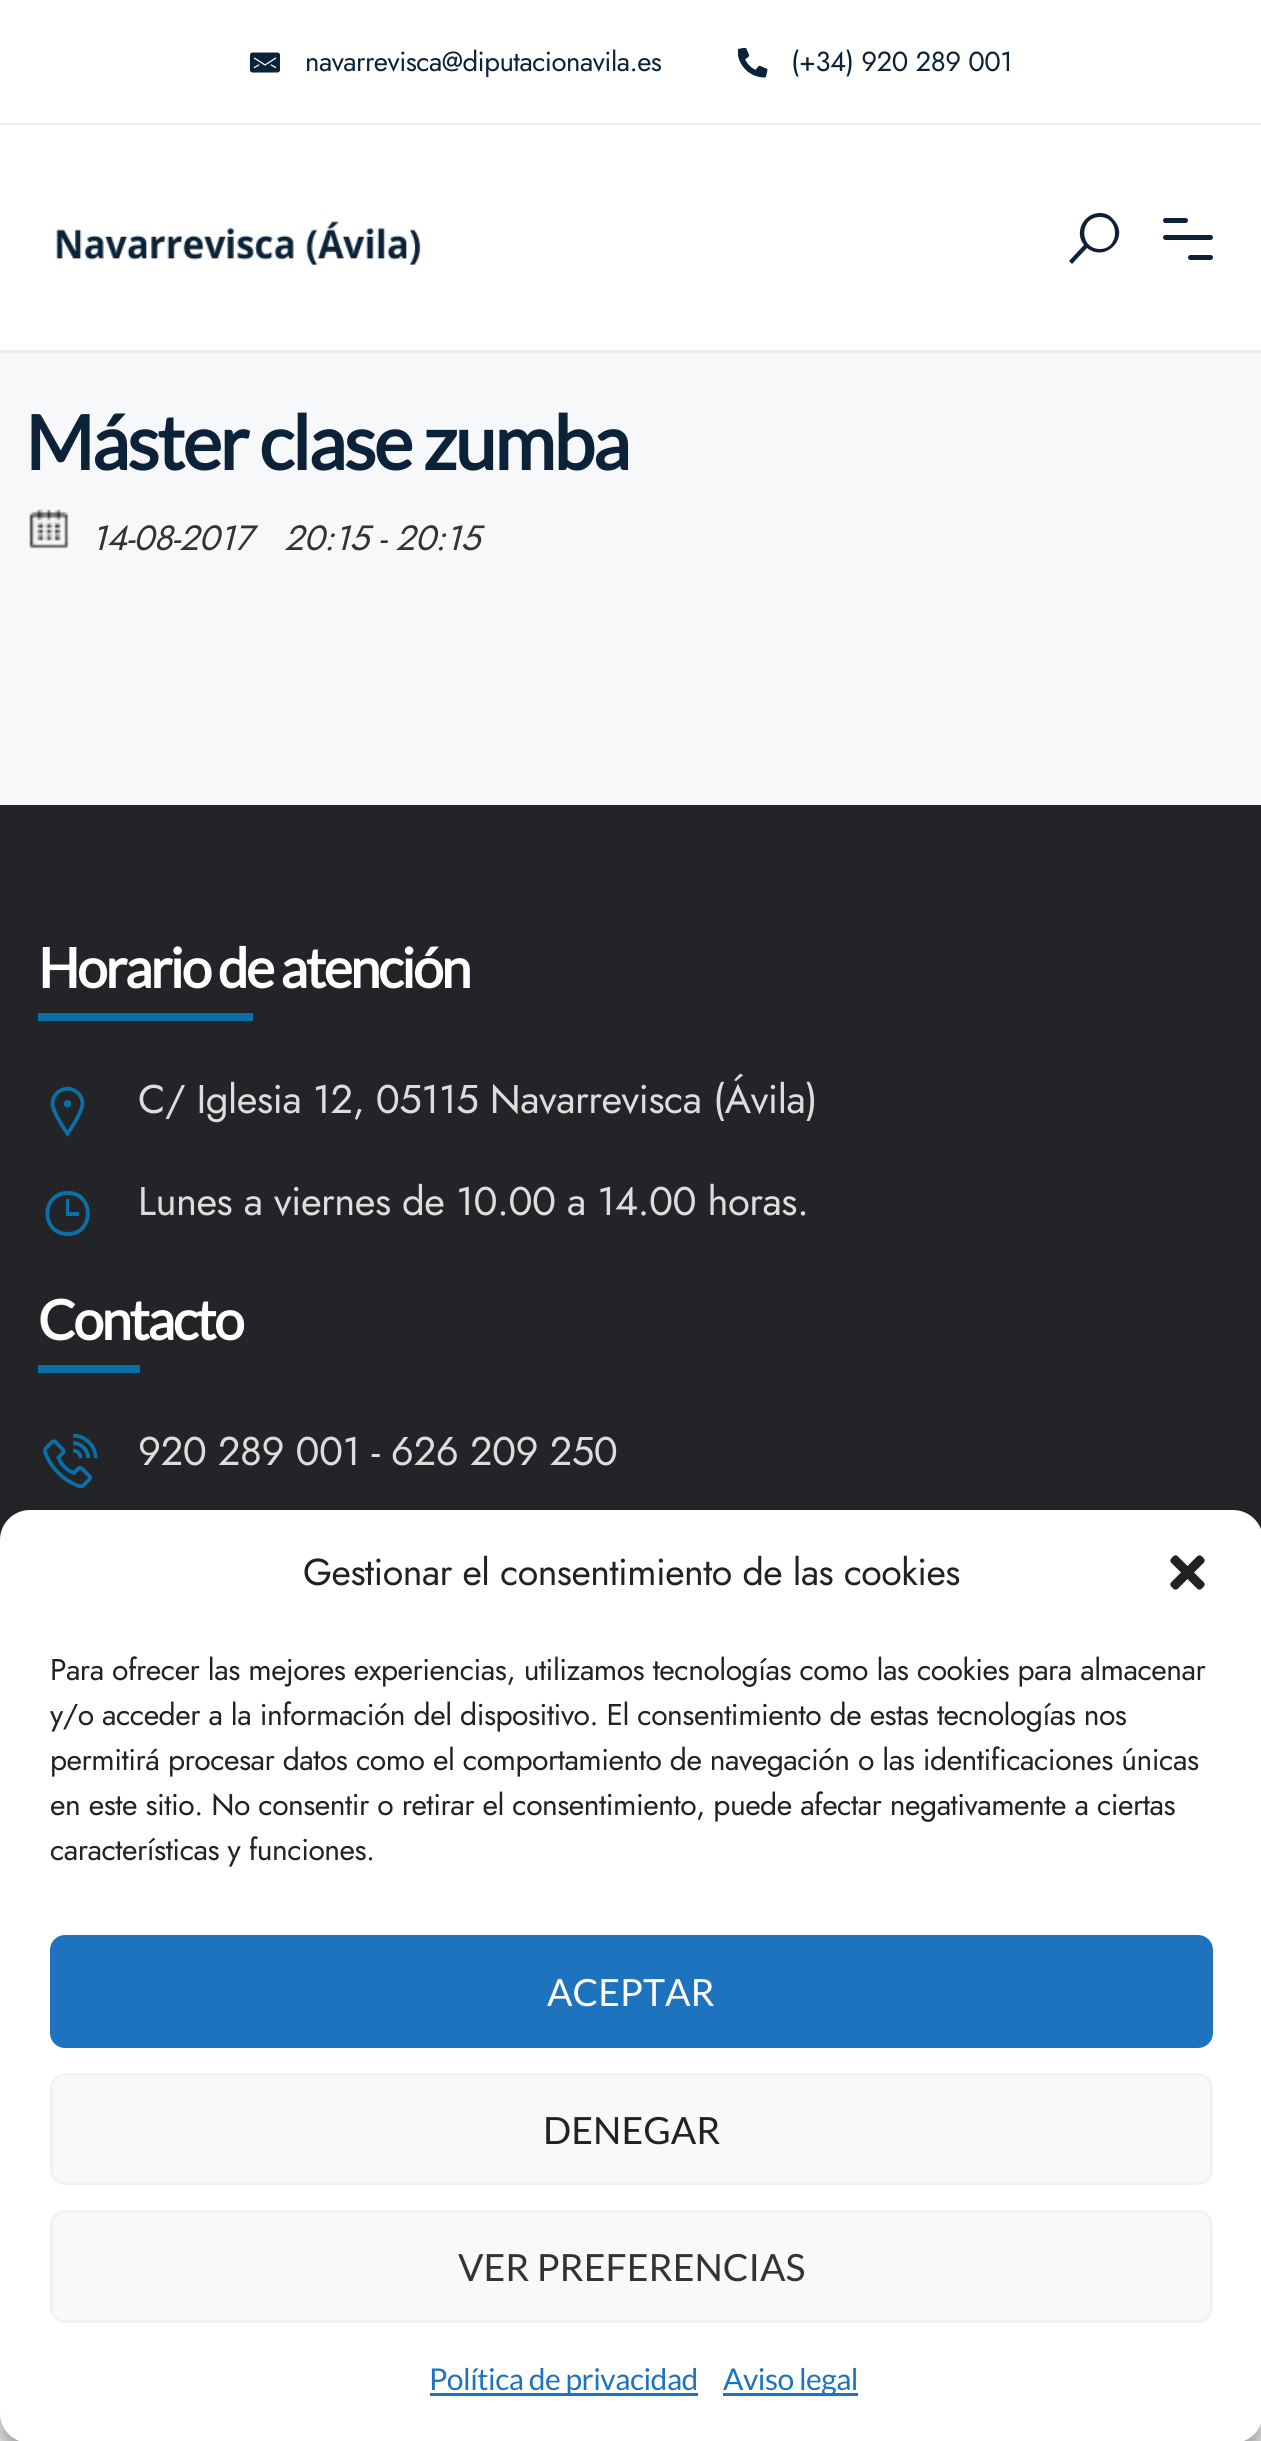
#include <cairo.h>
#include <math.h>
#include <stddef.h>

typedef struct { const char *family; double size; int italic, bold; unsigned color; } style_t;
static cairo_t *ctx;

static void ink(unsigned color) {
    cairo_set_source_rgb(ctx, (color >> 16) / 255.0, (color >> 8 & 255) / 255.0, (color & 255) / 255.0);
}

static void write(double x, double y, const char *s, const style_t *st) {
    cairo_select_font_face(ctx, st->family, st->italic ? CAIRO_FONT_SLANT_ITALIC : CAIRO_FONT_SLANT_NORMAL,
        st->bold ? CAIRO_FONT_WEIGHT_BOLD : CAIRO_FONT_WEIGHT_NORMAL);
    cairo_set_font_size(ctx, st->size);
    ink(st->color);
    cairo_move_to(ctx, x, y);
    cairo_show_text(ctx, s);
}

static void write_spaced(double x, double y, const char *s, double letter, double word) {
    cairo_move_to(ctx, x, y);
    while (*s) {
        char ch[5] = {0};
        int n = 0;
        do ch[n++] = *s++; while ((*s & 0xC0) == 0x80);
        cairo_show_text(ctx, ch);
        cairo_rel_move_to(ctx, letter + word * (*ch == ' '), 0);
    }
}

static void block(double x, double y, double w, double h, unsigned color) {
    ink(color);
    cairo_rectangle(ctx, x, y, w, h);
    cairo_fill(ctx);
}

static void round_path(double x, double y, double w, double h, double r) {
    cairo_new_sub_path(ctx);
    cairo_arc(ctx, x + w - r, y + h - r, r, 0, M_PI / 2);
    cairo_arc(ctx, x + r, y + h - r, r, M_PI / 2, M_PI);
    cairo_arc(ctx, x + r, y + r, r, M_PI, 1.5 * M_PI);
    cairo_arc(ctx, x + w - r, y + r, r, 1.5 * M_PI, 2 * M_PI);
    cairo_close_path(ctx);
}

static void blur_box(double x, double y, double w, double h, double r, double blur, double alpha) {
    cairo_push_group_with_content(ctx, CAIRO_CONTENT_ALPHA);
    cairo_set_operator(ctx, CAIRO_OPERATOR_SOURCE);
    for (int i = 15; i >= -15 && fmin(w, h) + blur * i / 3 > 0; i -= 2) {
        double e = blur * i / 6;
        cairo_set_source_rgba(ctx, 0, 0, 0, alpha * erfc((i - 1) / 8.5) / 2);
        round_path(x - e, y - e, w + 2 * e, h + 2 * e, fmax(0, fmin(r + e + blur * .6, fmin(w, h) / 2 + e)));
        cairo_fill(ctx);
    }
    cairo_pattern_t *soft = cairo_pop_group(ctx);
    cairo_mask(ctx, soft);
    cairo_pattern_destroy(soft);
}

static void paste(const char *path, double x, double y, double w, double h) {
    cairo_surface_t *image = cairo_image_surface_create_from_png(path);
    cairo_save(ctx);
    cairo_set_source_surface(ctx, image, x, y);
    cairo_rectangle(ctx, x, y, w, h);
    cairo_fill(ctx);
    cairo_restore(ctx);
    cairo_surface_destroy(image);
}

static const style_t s1 = {"Lato", 37.5, 0, 0, 0xffffff};
static const style_t s2 = {"Lato", 37.5, 0, 0, 0x222222};
static const style_t s3 = {"Lato", 37.5, 0, 0, 0x333333};

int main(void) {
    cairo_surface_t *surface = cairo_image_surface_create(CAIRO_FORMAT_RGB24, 1261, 2441);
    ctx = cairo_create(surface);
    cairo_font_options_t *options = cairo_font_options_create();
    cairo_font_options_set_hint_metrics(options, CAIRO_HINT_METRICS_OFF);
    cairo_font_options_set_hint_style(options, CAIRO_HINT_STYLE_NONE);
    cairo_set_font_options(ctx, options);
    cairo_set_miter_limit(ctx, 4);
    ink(0xf7f8f9);
    cairo_paint(ctx);
    block(0, 0, 1261, 123, 0xffffff);
    block(0, 123, 1261, 2, 0xeeeeee);
    paste("pic1.png", 250, 52, 30, 21);
    cairo_select_font_face(ctx, "Jost", CAIRO_FONT_SLANT_NORMAL, CAIRO_FONT_WEIGHT_NORMAL);
    cairo_set_font_size(ctx, 27.5);
    ink(0x0b2238);
    write_spaced(305, 71, "navarrevisca@diputacionavila.es", -0.5, 0);
    paste("pic2.png", 738, 48, 30, 30);
    write_spaced(791, 71, "(+34) 920 289 001", -0.5, 0);
    block(0, 125, 1261, 225, 0xffffff);
    block(0, 350, 1261, 3, 0xeeeeee);
    paste("pic3.png", 56, 221, 365, 44);
    ink(0x0b2238);
    cairo_new_path(ctx);
    cairo_move_to(ctx, 1100, 213);
    cairo_curve_to(ctx, 1083, 213, 1074, 233, 1084, 245);
    cairo_line_to(ctx, 1069, 261);
    cairo_line_to(ctx, 1072, 264);
    cairo_line_to(ctx, 1087, 248);
    cairo_curve_to(ctx, 1106, 263, 1131, 237, 1113, 219);
    cairo_curve_to(ctx, 1110, 215, 1105, 213, 1100, 213);
    cairo_close_path(ctx);
    cairo_move_to(ctx, 1100, 217);
    cairo_curve_to(ctx, 1120, 217, 1120, 249, 1100, 249);
    cairo_curve_to(ctx, 1079, 249, 1079, 217, 1100, 217);
    cairo_close_path(ctx);
    cairo_fill(ctx);
    round_path(1163, 218, 25, 5, 2.5);
    cairo_fill(ctx);
    round_path(1163, 235, 50, 5, 2.5);
    cairo_fill(ctx);
    round_path(1188, 255, 25, 5, 2.5);
    cairo_fill(ctx);
    cairo_select_font_face(ctx, "Lato", CAIRO_FONT_SLANT_NORMAL, CAIRO_FONT_WEIGHT_BOLD);
    cairo_set_font_size(ctx, 75);
    write_spaced(25, 470, "Máster clase zumba", -2.5, 0);
    paste("pic4.png", 29, 509, 40, 40);
    cairo_select_font_face(ctx, "Jost", CAIRO_FONT_SLANT_ITALIC, CAIRO_FONT_WEIGHT_NORMAL);
    cairo_set_font_size(ctx, 35);
    ink(0x333333);
    write_spaced(91, 550, "14-08-2017", -0.5, 0);
    write_spaced(284, 550, "20:15 - 20:15", -0.5, 0);
    block(0, 805, 1261, 735, 0x232427);
    cairo_select_font_face(ctx, "Lato", CAIRO_FONT_SLANT_NORMAL, CAIRO_FONT_WEIGHT_BOLD);
    cairo_set_font_size(ctx, 55);
    ink(0xffffff);
    write_spaced(38, 988, "Horario de atención", -2.5, 0);
    block(38, 1013, 215, 8, 0x0a70a7);
    paste("pic5.png", 50, 1086, 35, 51);
    cairo_select_font_face(ctx, "Jost", CAIRO_FONT_SLANT_NORMAL, CAIRO_FONT_WEIGHT_NORMAL);
    cairo_set_font_size(ctx, 40);
    ink(0xdddddd);
    write_spaced(138, 1113, "C/ Iglesia 12, 05115 Navarrevisca (Ávila)", -0.5, 0);
    ink(0x0a70a7);
    cairo_new_path(ctx);
    cairo_move_to(ctx, 68, 1191);
    cairo_curve_to(ctx, 38, 1191, 38, 1236, 68, 1236);
    cairo_curve_to(ctx, 97, 1236, 97, 1191, 68, 1191);
    cairo_close_path(ctx);
    cairo_move_to(ctx, 68, 1195);
    cairo_curve_to(ctx, 92, 1195, 92, 1232, 68, 1232);
    cairo_curve_to(ctx, 43, 1232, 43, 1195, 68, 1195);
    cairo_close_path(ctx);
    cairo_move_to(ctx, 66, 1199);
    cairo_line_to(ctx, 66, 1216);
    cairo_line_to(ctx, 79, 1216);
    cairo_line_to(ctx, 79, 1212);
    cairo_line_to(ctx, 69, 1212);
    cairo_line_to(ctx, 69, 1199);
    cairo_close_path(ctx);
    cairo_fill(ctx);
    ink(0xdddddd);
    write_spaced(138, 1215, "Lunes a viernes de 10.00 a 14.00 horas.", -0.5, 0);
    cairo_select_font_face(ctx, "Lato", CAIRO_FONT_SLANT_NORMAL, CAIRO_FONT_WEIGHT_BOLD);
    cairo_set_font_size(ctx, 55);
    ink(0xffffff);
    write_spaced(38, 1340, "Contacto", -2.5, 0);
    block(38, 1365, 102, 8, 0x0a70a7);
    paste("pic6.png", 43, 1433, 55, 56);
    cairo_select_font_face(ctx, "Jost", CAIRO_FONT_SLANT_NORMAL, CAIRO_FONT_WEIGHT_NORMAL);
    cairo_set_font_size(ctx, 40);
    ink(0xdddddd);
    write_spaced(138, 1465, "920 289 001 - 626 209 250", -0.5, 0);
    ink(0x000000);
    blur_box(0, 1525, 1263, 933, 30, 7.5, 0.23);
    blur_box(0, 1535, 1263, 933, 30, 25, 0.19);
    ink(0xffffff);
    round_path(0, 1510, 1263, 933, 30);
    cairo_fill(ctx);
    cairo_set_font_size(ctx, 37.5);
    ink(0x222222);
    write_spaced(303, 1585, "Gestionar el consentimiento de las cookies", -0.5, 0);
    paste("pic7.png", 1170, 1555, 35, 35);
    cairo_set_font_size(ctx, 30);
    write_spaced(50, 1680, "Para ofrecer las mejores experiencias, utilizamos tecnologías como las cookies para almacenar", -0.5, 0);
    write_spaced(50, 1725, "y/o acceder a la información del dispositivo. El consentimiento de estas tecnologías nos", -0.5, 0);
    write_spaced(50, 1770, "permitirá procesar datos como el comportamiento de navegación o las identificaciones únicas", -0.5, 0);
    write_spaced(50, 1815, "en este sitio. No consentir o retirar el consentimiento, puede afectar negativamente a ciertas", -0.5, 0);
    write_spaced(50, 1860, "características y funciones.", -0.5, 0);
    ink(0x1e73be);
    round_path(51.5, 1936.5, 1160, 110, 13.5);
    cairo_fill_preserve(ctx);
    cairo_set_line_width(ctx, 3);
    cairo_stroke(ctx);
    write(547, 2006, "ACEPTAR", &s1);
    ink(0xf9f9f9);
    round_path(51.5, 2074.5, 1160, 109, 13.5);
    cairo_fill_preserve(ctx);
    ink(0xf2f2f2);
    cairo_stroke(ctx);
    write(543, 2144, "DENEGAR", &s2);
    ink(0xf9f9f9);
    round_path(51.5, 2211.5, 1160, 110, 13.5);
    cairo_fill_preserve(ctx);
    ink(0xf2f2f2);
    cairo_stroke(ctx);
    write(458, 2281, "VER PREFERENCIAS", &s3);
    block(430, 2393, 268, 3, 0x1e73be);
    cairo_set_font_size(ctx, 30);
    write_spaced(429, 2390, "Política de privacidad", -0.5, 0);
    block(723, 2393, 135, 3, 0x1e73be);
    write_spaced(723, 2390, "Aviso legal", -0.5, 0);
    cairo_surface_write_to_png(surface, "screenshot.png");
    cairo_font_options_destroy(options);
    cairo_destroy(ctx);
    cairo_surface_destroy(surface);
    return 0;
}
